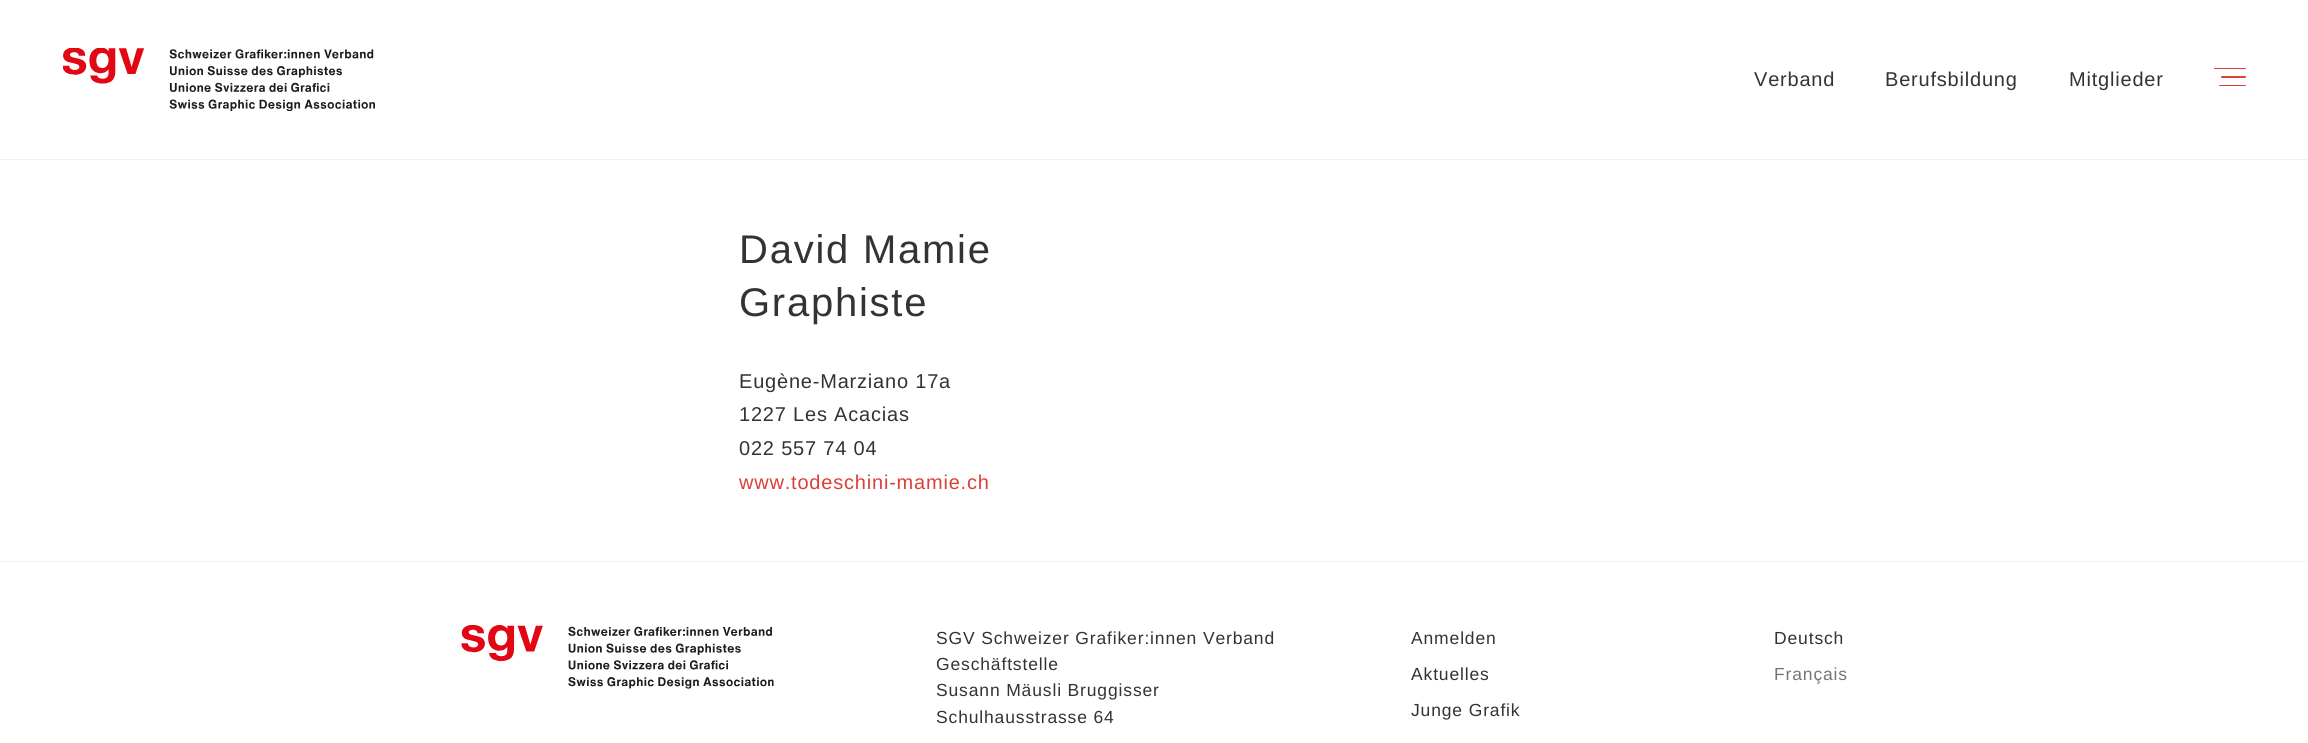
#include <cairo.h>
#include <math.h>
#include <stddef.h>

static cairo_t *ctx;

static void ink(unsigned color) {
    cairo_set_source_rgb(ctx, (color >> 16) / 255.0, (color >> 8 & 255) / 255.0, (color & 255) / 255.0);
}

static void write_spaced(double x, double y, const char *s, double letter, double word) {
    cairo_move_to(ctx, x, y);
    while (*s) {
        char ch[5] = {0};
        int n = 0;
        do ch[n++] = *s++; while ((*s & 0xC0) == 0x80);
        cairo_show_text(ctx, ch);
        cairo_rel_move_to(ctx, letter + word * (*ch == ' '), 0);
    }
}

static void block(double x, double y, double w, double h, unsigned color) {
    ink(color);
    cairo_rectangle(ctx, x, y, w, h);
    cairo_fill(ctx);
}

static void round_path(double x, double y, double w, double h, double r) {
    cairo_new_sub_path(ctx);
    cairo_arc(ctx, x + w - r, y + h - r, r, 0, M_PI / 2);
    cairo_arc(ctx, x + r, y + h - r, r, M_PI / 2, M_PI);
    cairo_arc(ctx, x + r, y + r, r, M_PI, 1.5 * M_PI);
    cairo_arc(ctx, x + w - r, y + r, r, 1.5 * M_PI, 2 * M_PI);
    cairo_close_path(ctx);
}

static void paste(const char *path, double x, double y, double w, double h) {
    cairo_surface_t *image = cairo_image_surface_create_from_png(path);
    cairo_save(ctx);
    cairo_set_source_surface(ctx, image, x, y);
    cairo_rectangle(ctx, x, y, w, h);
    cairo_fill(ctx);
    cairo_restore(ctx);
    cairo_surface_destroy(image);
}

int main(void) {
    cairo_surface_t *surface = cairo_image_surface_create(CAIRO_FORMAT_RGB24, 2308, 743);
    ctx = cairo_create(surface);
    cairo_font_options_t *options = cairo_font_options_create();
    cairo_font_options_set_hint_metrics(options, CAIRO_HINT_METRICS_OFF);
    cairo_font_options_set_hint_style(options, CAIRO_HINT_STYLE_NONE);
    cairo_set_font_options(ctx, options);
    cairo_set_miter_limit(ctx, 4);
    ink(0xffffff);
    cairo_paint(ctx);
    block(0, 159, 2308, 1, 0xf1f1f1);
    paste("pic1.png", 63, 48, 312, 63);
    cairo_select_font_face(ctx, "Liberation Sans", CAIRO_FONT_SLANT_NORMAL, CAIRO_FONT_WEIGHT_NORMAL);
    cairo_set_font_size(ctx, 20);
    ink(0x333333);
    write_spaced(1754, 86, "Verband", 0.8, 0);
    write_spaced(1885, 86, "Berufsbildung", 0.8, 0);
    write_spaced(2069, 86, "Mitglieder", 0.8, 0);
    ink(0xdc3f37);
    round_path(2214, 68, 32, 1, 0.5);
    cairo_fill(ctx);
    round_path(2221, 76, 25, 2, 1);
    cairo_fill(ctx);
    round_path(2219, 85, 27, 1, 0.5);
    cairo_fill(ctx);
    cairo_set_font_size(ctx, 40);
    ink(0x333333);
    write_spaced(739, 263, "David Mamie", 1.75, 0);
    write_spaced(739, 316, "Graphiste", 1.75, 0);
    cairo_set_font_size(ctx, 20);
    write_spaced(739, 388, "Eugène-Marziano 17a", 0.8, 0);
    write_spaced(739, 421, "1227 Les Acacias", 0.8, 0);
    write_spaced(739, 455, "022 557 74 04", 0.8, 0);
    ink(0xdc3f37);
    write_spaced(739, 489, "www.todeschini-mamie.ch", 0.8, 0);
    block(0, 561, 2308, 1, 0xf1f1f1);
    paste("pic2.png", 461, 625, 313, 64);
    cairo_set_font_size(ctx, 17.5);
    ink(0x333333);
    write_spaced(936, 644, "SGV Schweizer Grafiker:innen Verband", 0.85, 0);
    write_spaced(936, 670, "Geschäftstelle", 0.85, 0);
    write_spaced(936, 696, "Susann Mäusli Bruggisser", 0.85, 0);
    write_spaced(936, 723, "Schulhausstrasse 64", 0.85, 0);
    write_spaced(1411, 644, "Anmelden", 0.85, 0);
    write_spaced(1411, 680, "Aktuelles", 0.85, 0);
    write_spaced(1411, 716, "Junge Grafik", 0.85, 0);
    write_spaced(1774, 644, "Deutsch", 0.85, 0);
    ink(0x757575);
    write_spaced(1774, 680, "Français", 0.85, 0);
    cairo_surface_write_to_png(surface, "screenshot.png");
    cairo_font_options_destroy(options);
    cairo_destroy(ctx);
    cairo_surface_destroy(surface);
    return 0;
}
